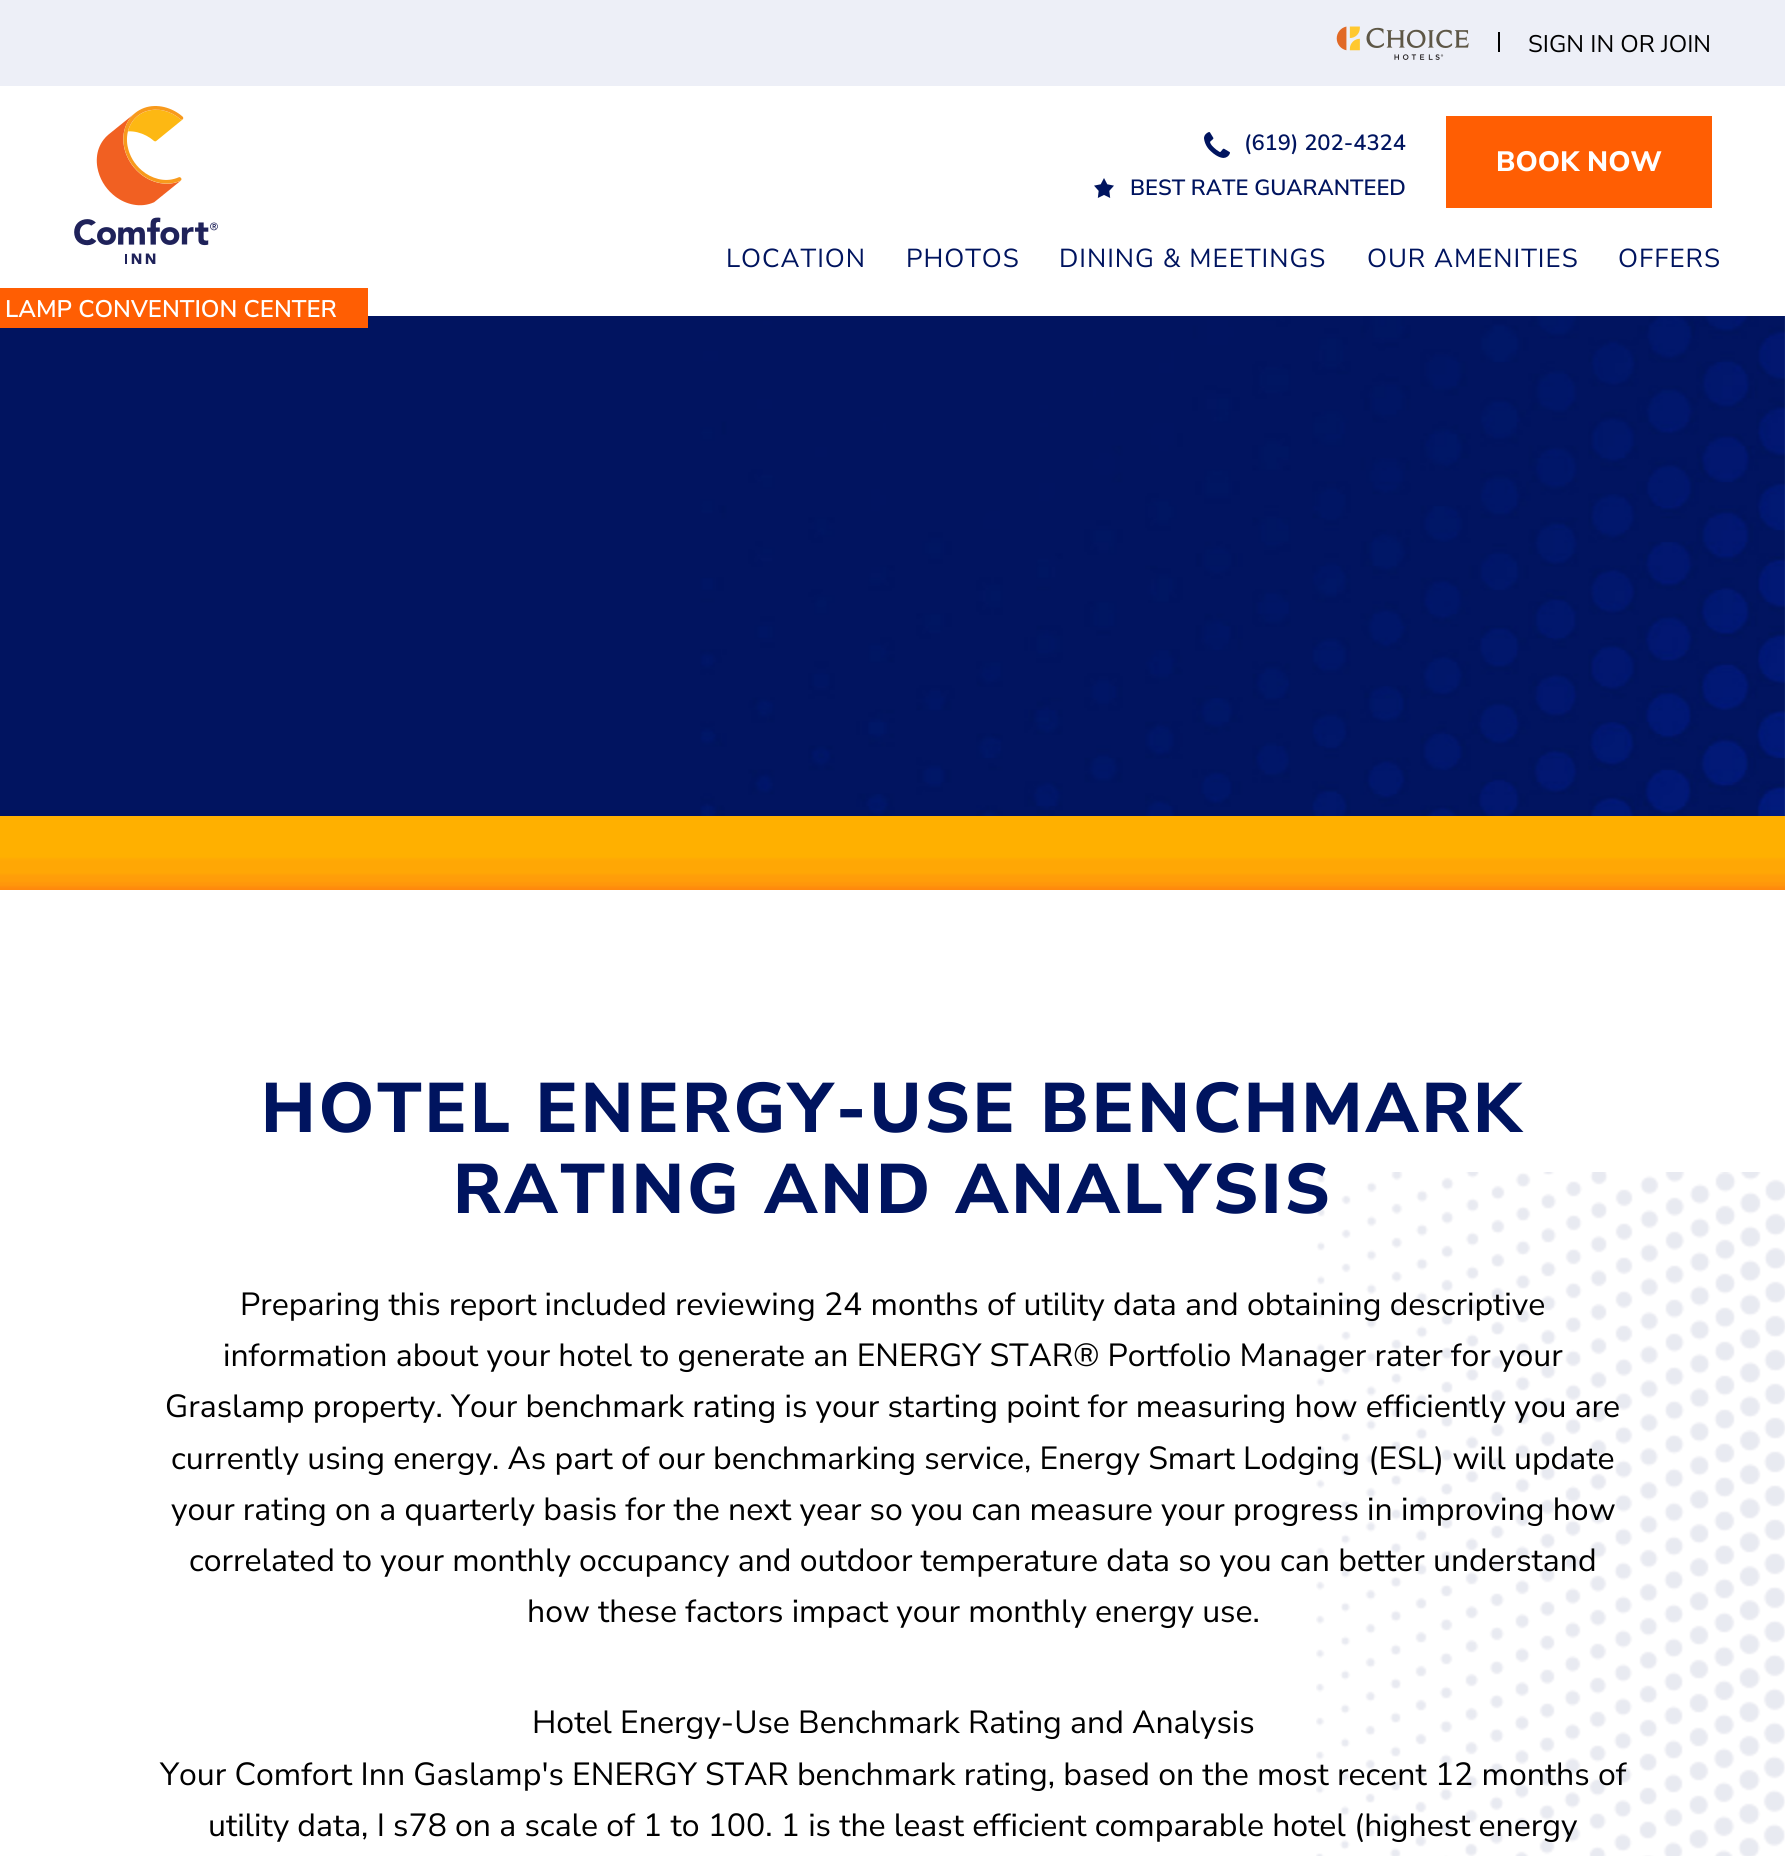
#include <cairo.h>
#include <math.h>
#include <stddef.h>

typedef struct { const char *family; double size; int italic, bold; unsigned color; } style_t;
static cairo_t *ctx;

static void ink(unsigned color) {
    cairo_set_source_rgb(ctx, (color >> 16) / 255.0, (color >> 8 & 255) / 255.0, (color & 255) / 255.0);
}

static void write(double x, double y, const char *s, const style_t *st) {
    cairo_select_font_face(ctx, st->family, st->italic ? CAIRO_FONT_SLANT_ITALIC : CAIRO_FONT_SLANT_NORMAL,
        st->bold ? CAIRO_FONT_WEIGHT_BOLD : CAIRO_FONT_WEIGHT_NORMAL);
    cairo_set_font_size(ctx, st->size);
    ink(st->color);
    cairo_move_to(ctx, x, y);
    cairo_show_text(ctx, s);
}

static void write_spaced(double x, double y, const char *s, double letter, double word) {
    cairo_move_to(ctx, x, y);
    while (*s) {
        char ch[5] = {0};
        int n = 0;
        do ch[n++] = *s++; while ((*s & 0xC0) == 0x80);
        cairo_show_text(ctx, ch);
        cairo_rel_move_to(ctx, letter + word * (*ch == ' '), 0);
    }
}

static void block(double x, double y, double w, double h, unsigned color) {
    ink(color);
    cairo_rectangle(ctx, x, y, w, h);
    cairo_fill(ctx);
}

static void paste(const char *path, double x, double y, double w, double h) {
    cairo_surface_t *image = cairo_image_surface_create_from_png(path);
    cairo_save(ctx);
    cairo_set_source_surface(ctx, image, x, y);
    cairo_rectangle(ctx, x, y, w, h);
    cairo_fill(ctx);
    cairo_restore(ctx);
    cairo_surface_destroy(image);
}

static const style_t s1 = {"Nunito Sans", 24, 0, 0, 0x000000};
static const style_t s2 = {"Nunito Sans SemiBold", 22, 0, 0, 0x00145f};
static const style_t s3 = {"Nunito Sans ExtraBold", 28, 0, 0, 0xffffff};
static const style_t s4 = {"Nunito Sans SemiBold", 24, 0, 0, 0xffffff};
static const style_t s5 = {"Nunito Sans", 32, 0, 0, 0x000000};

int main(void) {
    cairo_surface_t *surface = cairo_image_surface_create(CAIRO_FORMAT_RGB24, 1785, 1856);
    ctx = cairo_create(surface);
    cairo_font_options_t *options = cairo_font_options_create();
    cairo_font_options_set_hint_metrics(options, CAIRO_HINT_METRICS_OFF);
    cairo_font_options_set_hint_style(options, CAIRO_HINT_STYLE_NONE);
    cairo_set_font_options(ctx, options);
    cairo_set_miter_limit(ctx, 4);
    ink(0xffffff);
    cairo_paint(ctx);
    block(0, 0, 1785, 86, 0xedeff7);
    paste("pic1.png", 1336, 26, 133, 34);
    block(1498, 32, 2, 20, 0x000000);
    write(1528, 52, "SIGN IN OR JOIN", &s1);
    paste("pic2.png", 1204, 132, 26, 26);
    write(1244, 150, "(619) 202-4324", &s2);
    paste("pic3.png", 1094, 178, 20, 20);
    write(1130, 195, "BEST RATE GUARANTEED", &s2);
    block(1446, 116, 266, 92, 0xff5e03);
    write(1496, 171, "BOOK NOW", &s3);
    cairo_select_font_face(ctx, "Nunito Sans", CAIRO_FONT_SLANT_NORMAL, CAIRO_FONT_WEIGHT_NORMAL);
    cairo_set_font_size(ctx, 26);
    ink(0x00145f);
    write_spaced(726, 267, "LOCATION", 1, 0);
    write_spaced(906, 267, "PHOTOS", 1, 0);
    write_spaced(1059, 267, "DINING & MEETINGS", 1, 0);
    write_spaced(1367, 267, "OUR AMENITIES", 1, 0);
    write_spaced(1618, 267, "OFFERS", 1, 0);
    paste("pic4.png", 74, 106, 144, 158);
    paste("pic5.png", 0, 316, 1785, 500);
    block(0, 288, 368, 40, 0xff5e03);
    write(5, 317, "LAMP CONVENTION CENTER", &s4);
    paste("pic6.png", 0, 816, 1785, 74);
    paste("pic7.png", 1316, 1172, 469, 684);
    cairo_select_font_face(ctx, "Nunito Sans ExtraBold", CAIRO_FONT_SLANT_NORMAL, CAIRO_FONT_WEIGHT_NORMAL);
    cairo_set_font_size(ctx, 70);
    ink(0x00145f);
    write_spaced(261, 1132, "HOTEL ENERGY-USE BENCHMARK", 3, 0);
    write_spaced(453, 1213, "RATING AND ANALYSIS", 3, 0);
    write(240, 1315, "Preparing this report included reviewing 24 months of utility data and obtaining descriptive", &s5);
    write(223, 1366, "information about your hotel to generate an ENERGY STAR® Portfolio Manager rater for your", &s5);
    write(165, 1417, "Graslamp property. Your benchmark rating is your starting point for measuring how efficiently you are", &s5);
    write(171, 1469, "currently using energy. As part of our benchmarking service, Energy Smart Lodging (ESL) will update", &s5);
    write(171, 1520, "your rating on a quarterly basis for the next year so you can measure your progress in improving how", &s5);
    write(189, 1571, "correlated to your monthly occupancy and outdoor temperature data so you can better understand", &s5);
    write(527, 1622, "how these factors impact your monthly energy use.", &s5);
    write(532, 1733, "Hotel Energy-Use Benchmark Rating and Analysis", &s5);
    write(160, 1785, "Your Comfort Inn Gaslamp's ENERGY STAR benchmark rating, based on the most recent 12 months of", &s5);
    write(208, 1836, "utility data, I s78 on a scale of 1 to 100. 1 is the least efficient comparable hotel (highest energy", &s5);
    cairo_surface_write_to_png(surface, "screenshot.png");
    cairo_font_options_destroy(options);
    cairo_destroy(ctx);
    cairo_surface_destroy(surface);
    return 0;
}
